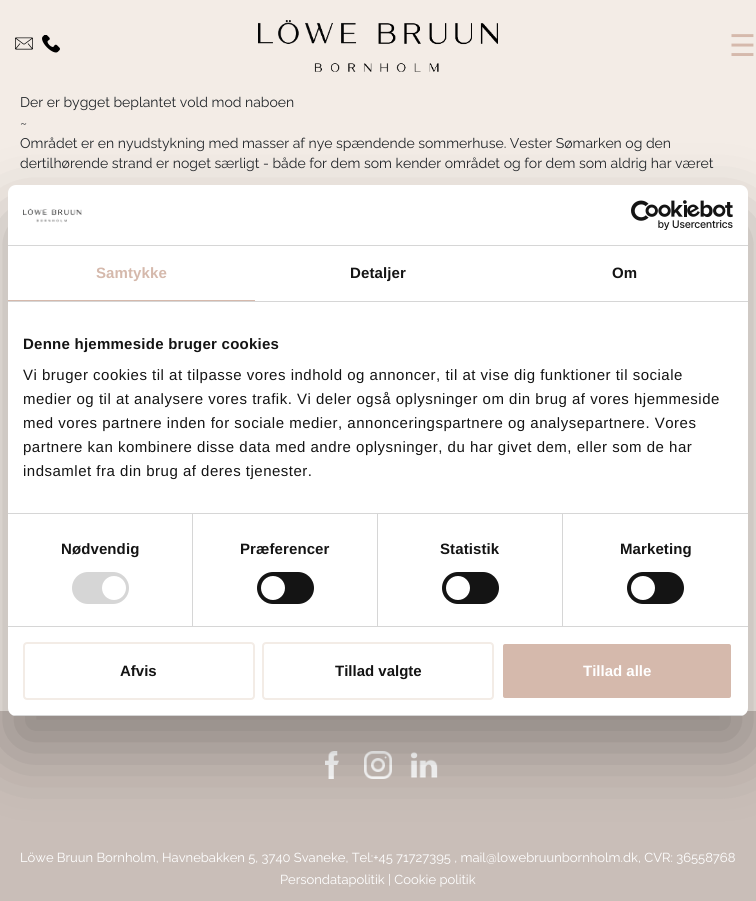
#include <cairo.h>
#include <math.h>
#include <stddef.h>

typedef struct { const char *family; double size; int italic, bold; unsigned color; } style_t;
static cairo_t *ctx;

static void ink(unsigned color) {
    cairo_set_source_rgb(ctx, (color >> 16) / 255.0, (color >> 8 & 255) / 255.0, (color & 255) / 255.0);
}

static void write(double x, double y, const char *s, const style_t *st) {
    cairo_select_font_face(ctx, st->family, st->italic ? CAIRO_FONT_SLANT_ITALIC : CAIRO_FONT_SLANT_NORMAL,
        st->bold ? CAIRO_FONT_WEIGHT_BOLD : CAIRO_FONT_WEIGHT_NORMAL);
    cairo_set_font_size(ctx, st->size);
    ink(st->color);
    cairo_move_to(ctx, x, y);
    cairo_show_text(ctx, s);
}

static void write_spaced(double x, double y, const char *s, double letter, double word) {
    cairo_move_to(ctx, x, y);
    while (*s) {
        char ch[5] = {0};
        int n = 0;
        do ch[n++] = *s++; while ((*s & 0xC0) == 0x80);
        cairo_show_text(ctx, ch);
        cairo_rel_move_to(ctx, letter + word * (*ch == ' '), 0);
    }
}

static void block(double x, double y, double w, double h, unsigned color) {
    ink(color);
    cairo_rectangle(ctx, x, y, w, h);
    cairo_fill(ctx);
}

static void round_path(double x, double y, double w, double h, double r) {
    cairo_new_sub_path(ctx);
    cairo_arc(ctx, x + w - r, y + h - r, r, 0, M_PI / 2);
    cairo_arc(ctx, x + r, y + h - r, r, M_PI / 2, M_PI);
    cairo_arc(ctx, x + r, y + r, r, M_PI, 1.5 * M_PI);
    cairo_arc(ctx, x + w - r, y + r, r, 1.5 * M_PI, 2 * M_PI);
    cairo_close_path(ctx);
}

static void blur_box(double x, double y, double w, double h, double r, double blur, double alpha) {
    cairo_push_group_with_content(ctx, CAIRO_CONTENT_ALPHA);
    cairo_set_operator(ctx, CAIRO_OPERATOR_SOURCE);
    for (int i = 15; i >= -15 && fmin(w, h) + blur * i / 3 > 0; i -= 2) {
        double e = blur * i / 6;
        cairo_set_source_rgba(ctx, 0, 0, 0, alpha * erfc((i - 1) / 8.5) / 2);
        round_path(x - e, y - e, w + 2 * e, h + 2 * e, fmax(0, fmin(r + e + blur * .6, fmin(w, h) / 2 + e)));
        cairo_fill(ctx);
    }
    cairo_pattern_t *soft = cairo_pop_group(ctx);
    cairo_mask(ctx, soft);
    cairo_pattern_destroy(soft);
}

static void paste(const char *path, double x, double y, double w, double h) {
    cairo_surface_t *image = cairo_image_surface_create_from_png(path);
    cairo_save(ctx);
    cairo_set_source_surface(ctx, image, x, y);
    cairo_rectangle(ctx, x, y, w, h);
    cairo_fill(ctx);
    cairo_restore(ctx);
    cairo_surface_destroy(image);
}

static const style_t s1 = {"DejaVu Sans", 30, 0, 0, 0xd5b9ac};
static const style_t s2 = {"Raleway", 14, 0, 0, 0x212529};
static const style_t s3 = {"Liberation Sans", 15, 0, 1, 0x141414};
static const style_t s4 = {"Liberation Sans", 15, 0, 1, 0xffffff};
static const style_t s5 = {"Raleway", 13, 0, 0, 0xffffff};

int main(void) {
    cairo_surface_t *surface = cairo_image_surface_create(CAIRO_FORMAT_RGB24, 756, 901);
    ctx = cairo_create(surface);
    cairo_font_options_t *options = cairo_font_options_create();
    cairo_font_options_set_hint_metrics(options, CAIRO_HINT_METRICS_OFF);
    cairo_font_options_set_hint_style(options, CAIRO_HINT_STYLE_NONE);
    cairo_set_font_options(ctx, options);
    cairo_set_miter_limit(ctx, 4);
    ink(0xf3ece6);
    cairo_paint(ctx);
    paste("pic1.png", 15, 37, 18, 13);
    paste("pic2.png", 42, 35, 18, 18);
    paste("pic3.png", 258, 20, 240, 52);
    write(729, 56, "☰", &s1);
    write(20, 107, "Der er bygget beplantet vold mod naboen", &s2);
    write(20, 128, "~", &s2);
    write(20, 148, "Området er en nyudstykning med masser af nye spændende sommerhuse. Vester Sømarken og den", &s2);
    write(20, 168, "dertilhørende strand er noget særligt - både for dem som kender området og for dem som aldrig har været", &s2);
    block(0, 711, 756, 190, 0xc9beb8);
    paste("pic6.png", 325, 751, 14, 28);
    paste("pic7.png", 364, 751, 28, 28);
    paste("pic8.png", 410, 752, 28, 26);
    ink(0x000000);
    blur_box(8, 217, 740, 531, 8, 34, 0.3);
    ink(0xffffff);
    round_path(8, 185, 740, 531, 8);
    cairo_fill(ctx);
    block(8, 245, 740, 1, 0xd6d6d6);
    paste("pic4.png", 23, 208, 59, 15);
    paste("pic5.png", 631, 200, 102, 30);
    block(8, 301, 740, 1, 0xd6d6d6);
    block(8, 300, 247, 1, 0xd5b9ac);
    cairo_select_font_face(ctx, "Liberation Sans", CAIRO_FONT_SLANT_NORMAL, CAIRO_FONT_WEIGHT_BOLD);
    cairo_set_font_size(ctx, 15);
    write_spaced(96, 278, "Samtykke", 0.1, 0);
    ink(0x141414);
    write_spaced(350, 278, "Detaljer", 0.1, 0);
    write_spaced(612, 278, "Om", 0.1, 0);
    block(8, 513, 740, 1, 0xd6d6d6);
    ink(0x141414);
    write_spaced(23, 349, "Denne hjemmeside bruger cookies", 0.25, 0);
    cairo_select_font_face(ctx, "Liberation Sans", CAIRO_FONT_SLANT_NORMAL, CAIRO_FONT_WEIGHT_NORMAL);
    write_spaced(23, 380, "Vi bruger cookies til at tilpasse vores indhold og annoncer, til at vise dig funktioner til sociale", 0.5, 0);
    write_spaced(23, 404, "medier og til at analysere vores trafik. Vi deler også oplysninger om din brug af vores hjemmeside", 0.5, 0);
    write_spaced(23, 428, "med vores partnere inden for sociale medier, annonceringspartnere og analysepartnere. Vores", 0.5, 0);
    write_spaced(23, 452, "partnere kan kombinere disse data med andre oplysninger, du har givet dem, eller som de har", 0.5, 0);
    write_spaced(23, 476, "indsamlet fra din brug af deres tjenester.", 0.5, 0);
    block(8, 626, 740, 1, 0xd6d6d6);
    block(192, 514, 1, 112, 0xd6d6d6);
    cairo_select_font_face(ctx, "Liberation Sans", CAIRO_FONT_SLANT_NORMAL, CAIRO_FONT_WEIGHT_BOLD);
    ink(0x141414);
    write_spaced(61, 554, "Nødvendig", 0.1, 0);
    ink(0xd6d6d6);
    round_path(72, 572, 57, 32, 16);
    cairo_fill(ctx);
    ink(0xffffff);
    cairo_arc(ctx, 114, 588, 12, 0, 2 * M_PI);
    cairo_fill(ctx);
    block(377, 514, 1, 112, 0xd6d6d6);
    ink(0x141414);
    write_spaced(240, 554, "Præferencer", 0.1, 0);
    round_path(257, 572, 57, 32, 16);
    cairo_fill(ctx);
    ink(0xffffff);
    cairo_arc(ctx, 273, 588, 12, 0, 2 * M_PI);
    cairo_fill(ctx);
    block(562, 514, 1, 112, 0xd6d6d6);
    ink(0x141414);
    write_spaced(440, 554, "Statistik", 0.1, 0);
    round_path(442, 572, 57, 32, 16);
    cairo_fill(ctx);
    ink(0xffffff);
    cairo_arc(ctx, 458, 588, 12, 0, 2 * M_PI);
    cairo_fill(ctx);
    ink(0x141414);
    write_spaced(620, 554, "Marketing", 0.1, 0);
    round_path(627, 572, 57, 32, 16);
    cairo_fill(ctx);
    ink(0xffffff);
    cairo_arc(ctx, 643, 588, 12, 0, 2 * M_PI);
    cairo_fill(ctx);
    cairo_save(ctx);
    round_path(8, 185, 740, 531, 8);
    cairo_clip(ctx);
    block(8, 715, 740, 1, 0xd6d6d6);
    cairo_restore(ctx);
    round_path(24, 643, 230, 56, 3);
    ink(0xf3ece6);
    cairo_stroke(ctx);
    write(120, 676, "Afvis", &s3);
    round_path(263, 643, 230, 56, 3);
    ink(0xf3ece6);
    cairo_stroke(ctx);
    write(335, 676, "Tillad valgte", &s3);
    ink(0xd5b9ac);
    round_path(502, 643, 230, 56, 3);
    cairo_fill_preserve(ctx);
    ink(0xffffff);
    cairo_stroke(ctx);
    write(583, 676, "Tillad alle", &s4);
    write(20, 862, "Löwe Bruun Bornholm, Havnebakken 5, 3740 Svaneke, Tel:+45 71727395 , mail@lowebruunbornholm.dk, CVR: 36558768", &s5);
    write(280, 884, "Persondatapolitik | Cookie politik", &s5);
    cairo_surface_write_to_png(surface, "screenshot.png");
    cairo_font_options_destroy(options);
    cairo_destroy(ctx);
    cairo_surface_destroy(surface);
    return 0;
}
